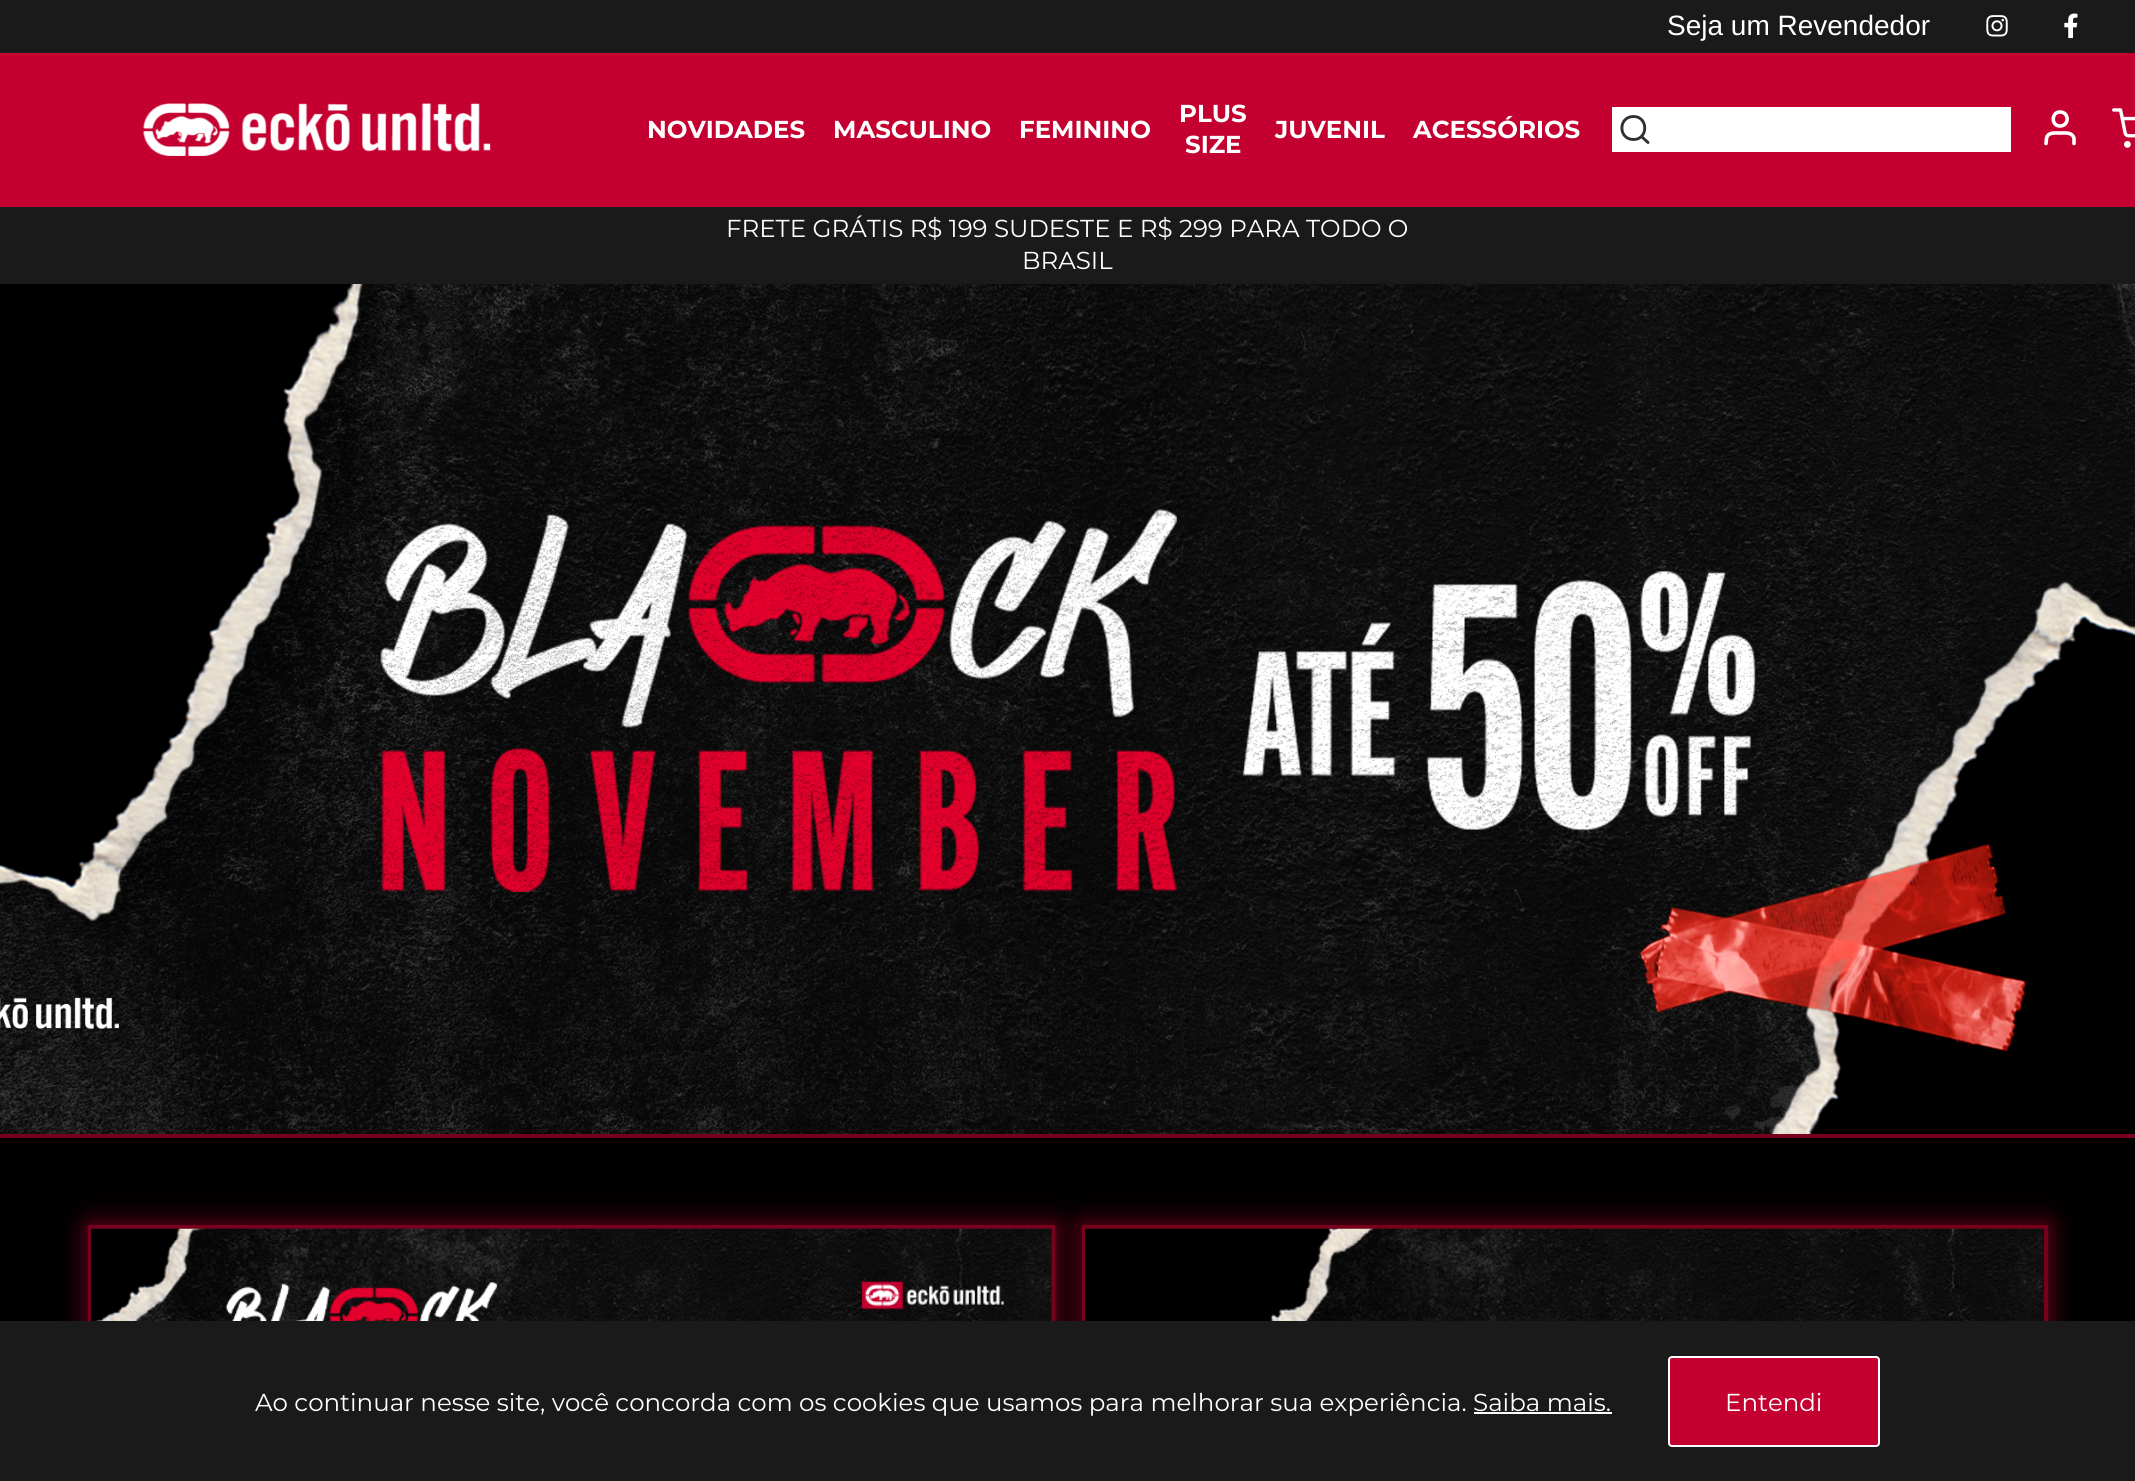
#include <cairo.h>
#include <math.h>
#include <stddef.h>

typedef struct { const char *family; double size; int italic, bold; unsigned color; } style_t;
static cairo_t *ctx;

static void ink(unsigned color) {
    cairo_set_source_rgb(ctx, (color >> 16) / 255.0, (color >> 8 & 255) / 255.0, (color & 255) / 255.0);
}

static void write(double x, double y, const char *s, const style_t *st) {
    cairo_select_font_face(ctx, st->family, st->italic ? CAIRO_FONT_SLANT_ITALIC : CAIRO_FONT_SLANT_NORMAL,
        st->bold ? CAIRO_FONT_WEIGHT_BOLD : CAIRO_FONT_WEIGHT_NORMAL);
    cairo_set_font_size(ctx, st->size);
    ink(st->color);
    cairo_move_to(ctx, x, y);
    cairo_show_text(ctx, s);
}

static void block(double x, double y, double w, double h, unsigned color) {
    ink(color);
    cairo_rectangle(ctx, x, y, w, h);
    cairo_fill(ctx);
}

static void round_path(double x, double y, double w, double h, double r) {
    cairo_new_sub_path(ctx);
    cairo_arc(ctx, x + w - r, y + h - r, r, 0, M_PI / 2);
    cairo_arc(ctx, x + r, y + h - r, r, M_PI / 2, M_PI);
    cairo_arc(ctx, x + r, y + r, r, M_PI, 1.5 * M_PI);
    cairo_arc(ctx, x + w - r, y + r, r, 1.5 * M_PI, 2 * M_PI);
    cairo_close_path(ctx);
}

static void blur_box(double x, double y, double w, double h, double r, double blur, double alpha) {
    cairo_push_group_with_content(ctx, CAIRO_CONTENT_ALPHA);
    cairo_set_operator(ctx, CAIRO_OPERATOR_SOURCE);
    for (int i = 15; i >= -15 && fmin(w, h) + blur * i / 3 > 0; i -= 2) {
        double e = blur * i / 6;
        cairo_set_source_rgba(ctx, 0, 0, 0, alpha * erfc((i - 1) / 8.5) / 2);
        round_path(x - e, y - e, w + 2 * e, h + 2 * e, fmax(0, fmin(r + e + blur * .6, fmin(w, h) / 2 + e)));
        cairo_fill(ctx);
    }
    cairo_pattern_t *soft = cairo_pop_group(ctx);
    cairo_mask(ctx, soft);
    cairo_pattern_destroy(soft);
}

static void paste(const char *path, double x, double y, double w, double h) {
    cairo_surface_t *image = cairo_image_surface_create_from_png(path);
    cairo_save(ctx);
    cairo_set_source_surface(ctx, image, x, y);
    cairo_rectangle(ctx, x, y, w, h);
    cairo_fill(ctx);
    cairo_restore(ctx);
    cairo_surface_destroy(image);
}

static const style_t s1 = {"Liberation Sans", 28, 0, 0, 0xffffff};
static const style_t s2 = {"Montserrat", 24.5, 0, 1, 0xffffff};
static const style_t s3 = {"Montserrat", 24.5, 0, 0, 0xffffff};

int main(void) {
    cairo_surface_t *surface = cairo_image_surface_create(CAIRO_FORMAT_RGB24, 2135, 1481);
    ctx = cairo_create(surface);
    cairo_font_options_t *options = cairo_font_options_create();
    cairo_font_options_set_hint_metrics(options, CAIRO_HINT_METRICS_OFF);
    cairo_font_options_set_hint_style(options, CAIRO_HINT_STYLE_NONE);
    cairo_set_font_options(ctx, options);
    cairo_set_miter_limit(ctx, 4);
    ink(0x000000);
    cairo_paint(ctx);
    block(0, 0, 2135, 53, 0x1a1a1a);
    write(1667, 35, "Seja um Revendedor", &s1);
    paste("pic1.png", 1986, 15, 22, 22);
    paste("pic2.png", 2064, 13, 14, 26);
    block(0, 53, 2135, 154, 0xc40030);
    paste("pic3.png", 143, 103, 348, 53);
    write(647, 138, "NOVIDADES", &s2);
    write(833, 138, "MASCULINO", &s2);
    write(1019, 138, "FEMININO", &s2);
    write(1179, 122, "PLUS", &s2);
    write(1185, 153, "SIZE", &s2);
    write(1275, 138, "JUVENIL", &s2);
    write(1413, 138, "ACESSÓRIOS", &s2);
    block(1612, 107, 399, 45, 0xffffff);
    cairo_new_path(ctx);
    cairo_move_to(ctx, 1633.5, 139.5);
    cairo_curve_to(ctx, 1648.5, 139.5, 1648.5, 116.5, 1633.5, 116.5);
    cairo_curve_to(ctx, 1618, 116.5, 1618, 139.5, 1633.5, 139.5);
    cairo_close_path(ctx);
    cairo_move_to(ctx, 1648, 142.5);
    cairo_line_to(ctx, 1641.5, 136.5);
    ink(0x303030);
    cairo_set_line_width(ctx, 2.9);
    cairo_set_line_cap(ctx, CAIRO_LINE_CAP_ROUND);
    cairo_set_line_join(ctx, CAIRO_LINE_JOIN_ROUND);
    cairo_stroke(ctx);
    cairo_new_path(ctx);
    cairo_move_to(ctx, 2074, 143.5);
    cairo_line_to(ctx, 2074, 138.5);
    cairo_curve_to(ctx, 2072.5, 132, 2065.5, 133, 2060, 133);
    cairo_curve_to(ctx, 2055, 133, 2047.5, 132, 2046.5, 138.5);
    cairo_line_to(ctx, 2046, 143.5);
    cairo_move_to(ctx, 2060, 126);
    cairo_curve_to(ctx, 2069.5, 126, 2069.5, 112, 2060, 112);
    cairo_curve_to(ctx, 2051, 112, 2051, 126, 2060, 126);
    cairo_close_path(ctx);
    ink(0xffffff);
    cairo_set_line_width(ctx, 3.6);
    cairo_stroke(ctx);
    paste("pic4.png", 2112, 108, 23, 40);
    block(0, 207, 2135, 77, 0x1a1a1a);
    write(726, 237, "FRETE GRÁTIS R$ 199 SUDESTE E R$ 299 PARA TODO O", &s3);
    write(1022, 269, "BRASIL", &s3);
    ink(0xc40030);
    blur_box(88, 1225, 967, 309, 0, 17.5, 0.3);
    blur_box(88, 1225, 967, 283, 0, 9, 0.4);
    cairo_rectangle(ctx, 90, 1227, 963, 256);
    ink(0x76001d);
    cairo_set_line_width(ctx, 4);
    cairo_set_line_cap(ctx, CAIRO_LINE_CAP_BUTT);
    cairo_set_line_join(ctx, CAIRO_LINE_JOIN_MITER);
    cairo_stroke(ctx);
    paste("pic6.png", 91, 1228, 961, 93);
    cairo_save(ctx);
    cairo_set_fill_rule(ctx, CAIRO_FILL_RULE_EVEN_ODD);
    cairo_new_path(ctx);
    cairo_move_to(ctx, 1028, 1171);
    cairo_line_to(ctx, 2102, 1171);
    cairo_line_to(ctx, 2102, 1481);
    cairo_line_to(ctx, 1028, 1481);
    cairo_close_path(ctx);
    cairo_move_to(ctx, 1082, 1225);
    cairo_line_to(ctx, 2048, 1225);
    cairo_line_to(ctx, 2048, 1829);
    cairo_line_to(ctx, 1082, 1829);
    cairo_close_path(ctx);
    cairo_clip(ctx);
    ink(0xc40030);
    blur_box(1082, 1225, 966, 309, 0, 17.5, 0.3);
    cairo_restore(ctx);
    cairo_save(ctx);
    cairo_set_fill_rule(ctx, CAIRO_FILL_RULE_EVEN_ODD);
    cairo_new_path(ctx);
    cairo_move_to(ctx, 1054, 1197);
    cairo_line_to(ctx, 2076, 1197);
    cairo_line_to(ctx, 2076, 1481);
    cairo_line_to(ctx, 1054, 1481);
    cairo_close_path(ctx);
    cairo_move_to(ctx, 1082, 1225);
    cairo_line_to(ctx, 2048, 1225);
    cairo_line_to(ctx, 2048, 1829);
    cairo_line_to(ctx, 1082, 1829);
    cairo_close_path(ctx);
    cairo_clip(ctx);
    ink(0xc40030);
    blur_box(1082, 1225, 966, 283, 0, 9, 0.4);
    cairo_restore(ctx);
    cairo_rectangle(ctx, 1084, 1227, 962, 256);
    cairo_set_source_rgba(ctx, 0.769, 0, 0.188, 0.6);
    cairo_stroke(ctx);
    block(0, 1321, 2135, 160, 0x1a1a1a);
    write(255, 1411, "Ao continuar nesse site, você concorda com os cookies que usamos para melhorar sua experiência. Saiba mais.", &s3);
    block(1474, 1412, 138, 2, 0xffffff);
    ink(0xc40030);
    round_path(1669, 1357, 210, 89, 3);
    cairo_fill_preserve(ctx);
    ink(0xffffff);
    cairo_set_line_width(ctx, 2);
    cairo_stroke(ctx);
    write(1725, 1411, "Entendi", &s3);
    block(0, 1134, 2135, 4, 0x76001d);
    paste("pic5.png", 0, 284, 2135, 850);
    paste("pic7.png", 1085, 1228, 959, 93);
    cairo_surface_write_to_png(surface, "screenshot.png");
    cairo_font_options_destroy(options);
    cairo_destroy(ctx);
    cairo_surface_destroy(surface);
    return 0;
}
